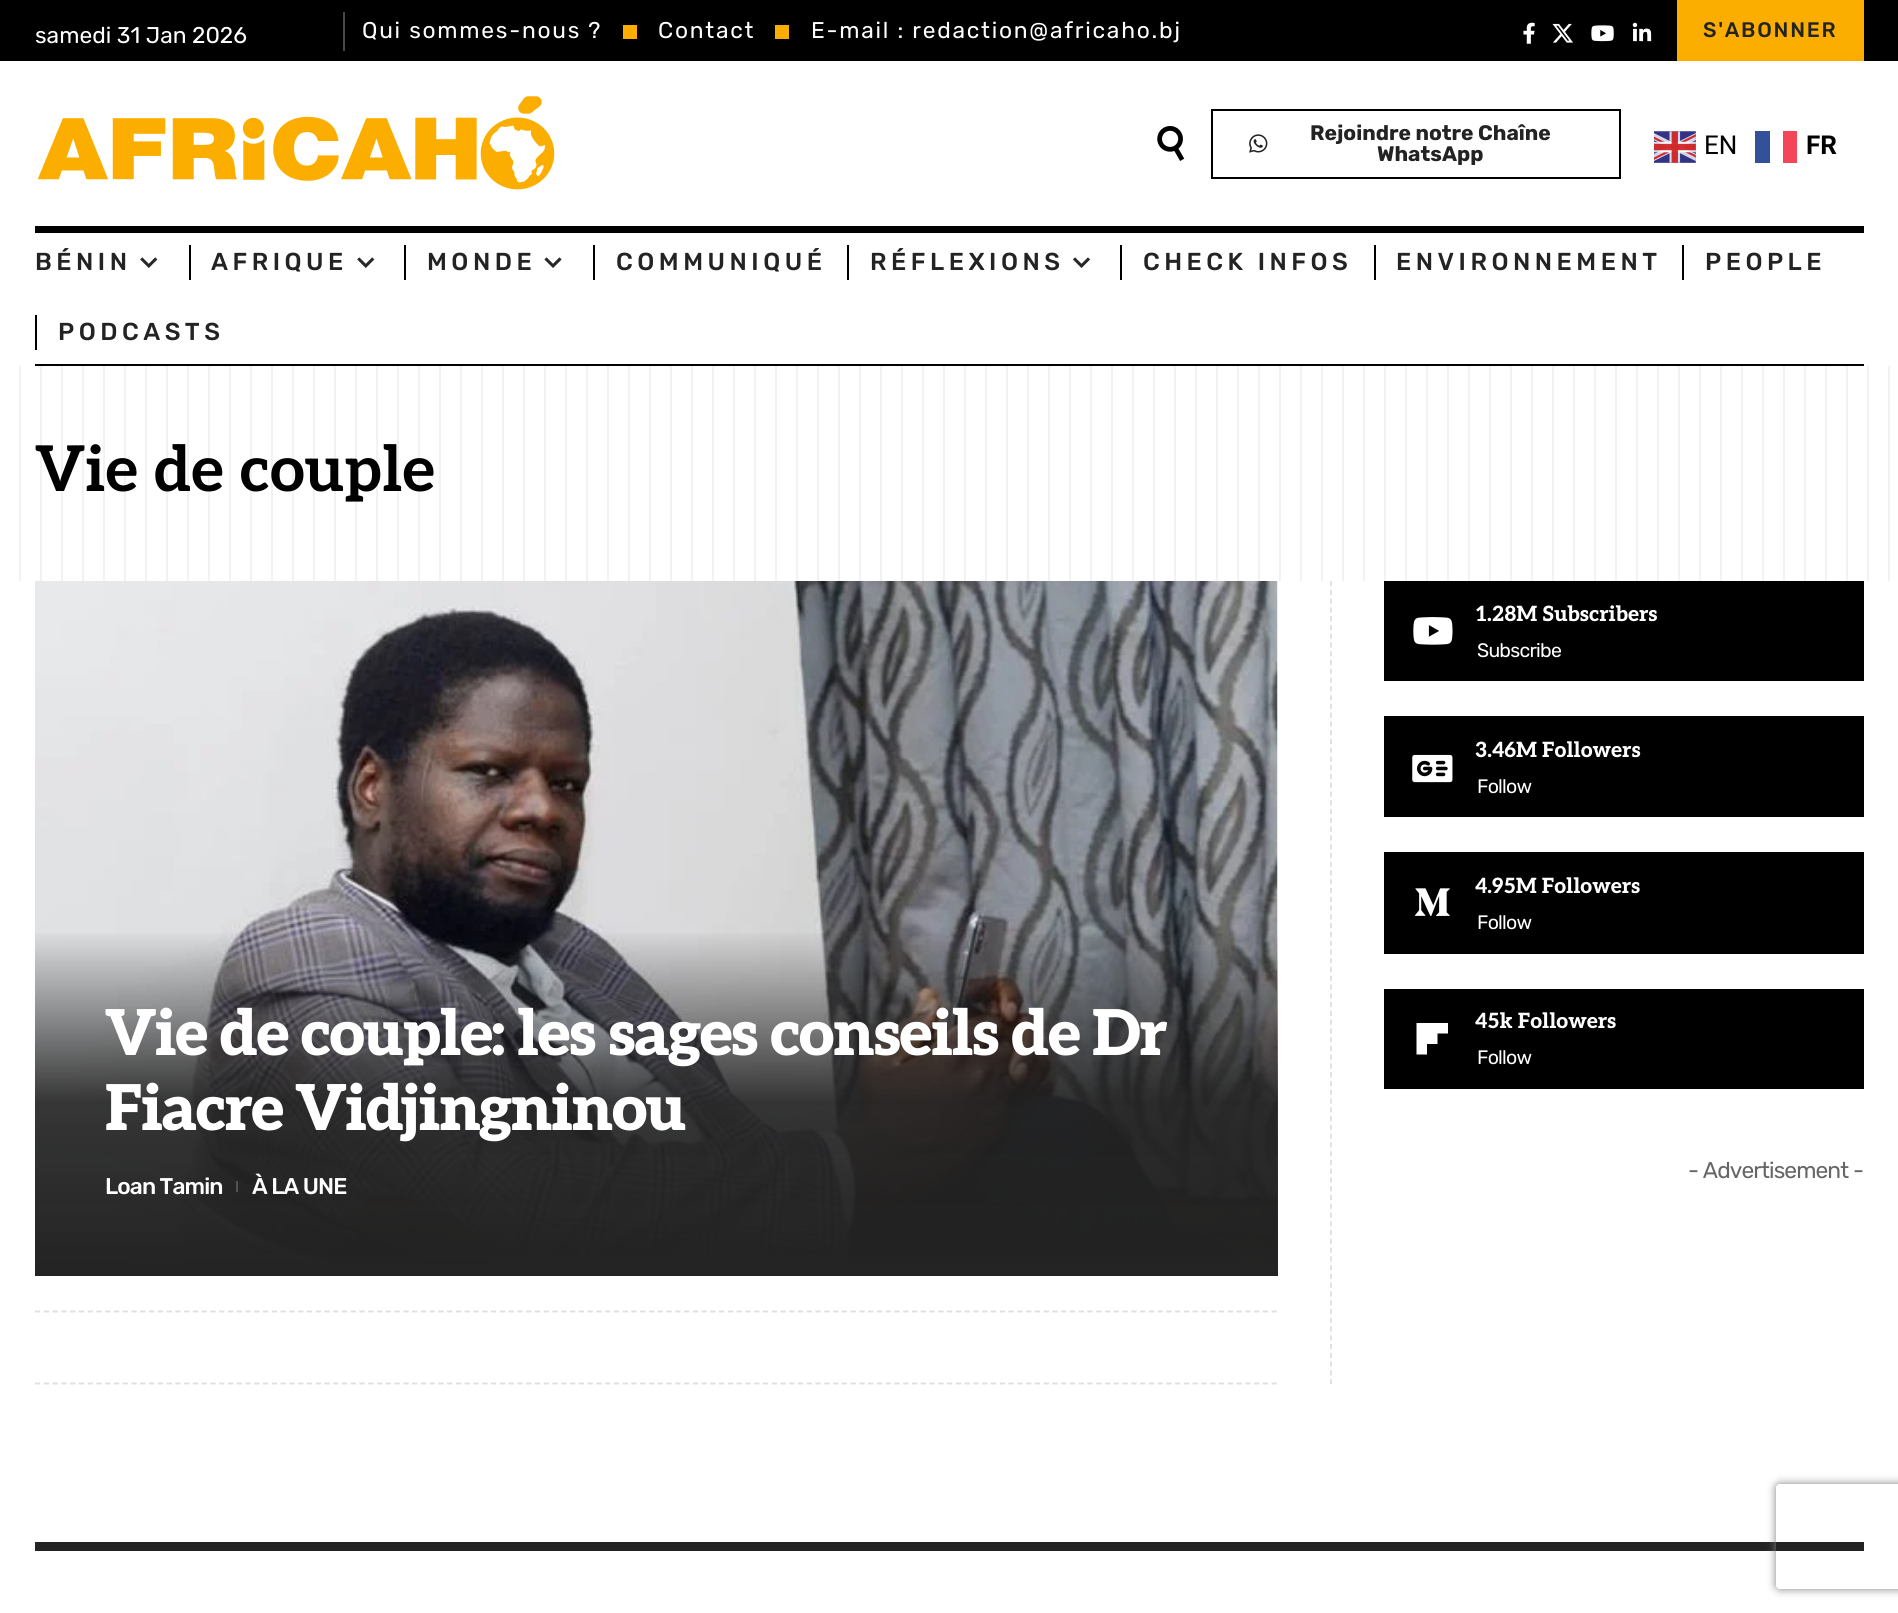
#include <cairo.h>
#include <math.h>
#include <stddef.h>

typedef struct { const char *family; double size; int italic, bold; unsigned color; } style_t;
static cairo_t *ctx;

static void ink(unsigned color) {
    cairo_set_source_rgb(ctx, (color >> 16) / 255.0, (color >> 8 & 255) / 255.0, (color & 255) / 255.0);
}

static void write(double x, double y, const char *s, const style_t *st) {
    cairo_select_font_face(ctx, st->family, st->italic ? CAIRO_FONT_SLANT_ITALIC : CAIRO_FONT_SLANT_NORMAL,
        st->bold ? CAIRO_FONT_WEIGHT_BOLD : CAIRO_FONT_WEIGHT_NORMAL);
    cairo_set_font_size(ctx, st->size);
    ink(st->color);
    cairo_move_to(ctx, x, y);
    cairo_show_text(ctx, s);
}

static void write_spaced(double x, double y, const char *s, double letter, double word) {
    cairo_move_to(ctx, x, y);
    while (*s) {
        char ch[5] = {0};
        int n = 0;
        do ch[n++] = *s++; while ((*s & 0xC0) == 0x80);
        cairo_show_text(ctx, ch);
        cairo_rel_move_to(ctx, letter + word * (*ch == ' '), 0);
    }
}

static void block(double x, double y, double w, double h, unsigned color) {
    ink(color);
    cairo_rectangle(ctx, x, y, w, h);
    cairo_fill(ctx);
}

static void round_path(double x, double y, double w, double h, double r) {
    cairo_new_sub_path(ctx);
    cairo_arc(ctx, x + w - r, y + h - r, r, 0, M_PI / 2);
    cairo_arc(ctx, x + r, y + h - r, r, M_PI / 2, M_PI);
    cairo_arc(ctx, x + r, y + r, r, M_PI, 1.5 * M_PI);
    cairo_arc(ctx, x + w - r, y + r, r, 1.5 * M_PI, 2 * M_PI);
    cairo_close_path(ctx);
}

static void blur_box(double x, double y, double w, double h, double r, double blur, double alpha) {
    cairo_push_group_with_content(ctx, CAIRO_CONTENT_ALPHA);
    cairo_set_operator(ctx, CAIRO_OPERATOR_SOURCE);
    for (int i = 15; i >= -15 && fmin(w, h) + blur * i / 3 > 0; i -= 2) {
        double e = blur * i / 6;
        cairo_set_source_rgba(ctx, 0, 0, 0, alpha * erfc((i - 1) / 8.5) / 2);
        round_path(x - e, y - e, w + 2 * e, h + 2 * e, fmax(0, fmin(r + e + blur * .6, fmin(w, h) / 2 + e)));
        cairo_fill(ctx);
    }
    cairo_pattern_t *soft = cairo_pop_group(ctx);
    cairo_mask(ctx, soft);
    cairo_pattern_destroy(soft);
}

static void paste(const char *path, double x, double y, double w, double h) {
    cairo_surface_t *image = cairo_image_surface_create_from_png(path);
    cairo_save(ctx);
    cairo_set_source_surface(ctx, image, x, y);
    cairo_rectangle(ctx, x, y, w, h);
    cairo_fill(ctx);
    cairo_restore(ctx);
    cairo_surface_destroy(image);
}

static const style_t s1 = {"Rubik", 22.75, 0, 0, 0xffffff};
static const style_t s2 = {"Rubik", 21, 0, 1, 0x232323};
static const style_t s3 = {"Roboto", 26, 0, 0, 0x000000};
static const style_t s4 = {"Roboto", 26, 0, 1, 0x000000};
static const style_t s5 = {"Aleo", 63, 0, 1, 0x000000};
static const style_t s6 = {"Aleo ExtraBold", 21, 0, 0, 0xffffff};

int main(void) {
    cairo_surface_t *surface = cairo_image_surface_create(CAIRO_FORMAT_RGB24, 1898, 1613);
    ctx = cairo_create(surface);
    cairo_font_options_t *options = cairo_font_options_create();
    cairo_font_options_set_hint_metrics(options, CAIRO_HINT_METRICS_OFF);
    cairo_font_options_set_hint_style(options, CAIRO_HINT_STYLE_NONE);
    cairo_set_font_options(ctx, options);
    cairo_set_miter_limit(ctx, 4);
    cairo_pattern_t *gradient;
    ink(0xffffff);
    cairo_paint(ctx);
    block(0, 0, 1898, 61, 0x000000);
    write(35, 43, "samedi 31 Jan 2026", &s1);
    block(343, 12, 2, 39, 0x484848);
    ink(0xffffff);
    write_spaced(362, 38, "Qui sommes-nous ?", 1.75, 0);
    block(623, 25, 14, 14, 0xfcae00);
    ink(0xffffff);
    write_spaced(658, 38, "Contact", 1.75, 0);
    block(775, 25, 14, 14, 0xfcae00);
    ink(0xffffff);
    write_spaced(811, 38, "E-mail : redaction@africaho.bj", 1.75, 0);
    paste("pic1.png", 1523, 22, 12, 22);
    paste("pic2.png", 1552, 23, 21, 20);
    paste("pic3.png", 1591, 25, 23, 17);
    paste("pic4.png", 1632, 22, 20, 20);
    block(1677, 0, 187, 61, 0xfcae00);
    cairo_select_font_face(ctx, "Rubik Medium", CAIRO_FONT_SLANT_NORMAL, CAIRO_FONT_WEIGHT_NORMAL);
    cairo_set_font_size(ctx, 21);
    ink(0x232323);
    write_spaced(1703, 37, "S'ABONNER", 1.75, 0);
    paste("pic5.png", 37, 96, 518, 94);
    paste("pic6.png", 1157, 126, 28, 35);
    cairo_rectangle(ctx, 1212, 110, 408, 68);
    ink(0x000000);
    cairo_stroke(ctx);
    paste("pic7.png", 1249, 134, 19, 19);
    write(1310, 140, "Rejoindre notre Chaîne", &s2);
    write(1377, 161, "WhatsApp", &s2);
    paste("pic8.png", 1654, 131, 42, 32);
    write(1704, 154, "EN", &s3);
    write(1806, 154, "FR", &s4);
    block(1755, 131, 15, 32, 0x335199);
    block(1783, 131, 14, 32, 0xf54659);
    block(35, 226, 1829, 7, 0x000000);
    block(35, 364, 1829, 2, 0x000000);
    cairo_select_font_face(ctx, "Rubik Medium", CAIRO_FONT_SLANT_NORMAL, CAIRO_FONT_WEIGHT_NORMAL);
    cairo_set_font_size(ctx, 24.5);
    ink(0x232323);
    write_spaced(35, 270, "BÉNIN", 4.5, 0);
    paste("pic9.png", 140, 257, 18, 11);
    block(189, 245, 2, 35, 0x000000);
    ink(0x232323);
    write_spaced(211, 270, "AFRIQUE", 4.5, 0);
    paste("pic9.png", 357, 257, 18, 11);
    block(404, 245, 2, 35, 0x000000);
    ink(0x232323);
    write_spaced(427, 270, "MONDE", 4.5, 0);
    paste("pic10.png", 544, 257, 18, 11);
    block(593, 245, 2, 35, 0x000000);
    ink(0x232323);
    write_spaced(616, 270, "COMMUNIQUÉ", 4.5, 0);
    block(847, 245, 2, 35, 0x000000);
    ink(0x232323);
    write_spaced(870, 270, "RÉFLEXIONS", 4.5, 0);
    paste("pic11.png", 1073, 257, 17, 11);
    block(1120, 245, 2, 35, 0x000000);
    ink(0x232323);
    write_spaced(1143, 270, "CHECK INFOS", 4.5, 0);
    block(1374, 245, 2, 35, 0x000000);
    ink(0x232323);
    write_spaced(1396, 270, "ENVIRONNEMENT", 4.5, 0);
    block(1682, 245, 2, 35, 0x000000);
    ink(0x232323);
    write_spaced(1705, 270, "PEOPLE", 4.5, 0);
    block(35, 315, 2, 35, 0x000000);
    ink(0x232323);
    write_spaced(58, 340, "PODCASTS", 4.5, 0);
    write(35, 491, "Vie de couple", &s5);
    paste("pic12.png", 19, 366, 1871, 215);
    cairo_new_path(ctx);
    cairo_move_to(ctx, 35, 1383.5);
    cairo_line_to(ctx, 1277.5, 1383.5);
    ink(0xdfdfdf);
    cairo_set_line_width(ctx, 1.8);
    cairo_set_dash(ctx, (double[]){5.25, 3.52}, 2, 0);
    cairo_stroke(ctx);
    paste("pic13.png", 35, 581, 1243, 685);
    gradient = cairo_pattern_create_linear(656, 1276, 656, 929);
    cairo_pattern_add_color_stop_rgba(gradient, 0, 0.137, 0.137, 0.137, 1);
    cairo_pattern_add_color_stop_rgba(gradient, 0.5, 0.137, 0.137, 0.137, 0.9);
    cairo_pattern_add_color_stop_rgba(gradient, 1, 0.137, 0.137, 0.137, 0);
    cairo_set_source(ctx, gradient);
    cairo_pattern_destroy(gradient);
    cairo_rectangle(ctx, 35, 933, 1243, 343);
    cairo_fill(ctx);
    cairo_select_font_face(ctx, "Aleo Black", CAIRO_FONT_SLANT_NORMAL, CAIRO_FONT_WEIGHT_NORMAL);
    ink(0xffffff);
    write_spaced(105, 1055, "Vie de couple: les sages conseils de Dr", -1.8, 0);
    write_spaced(105, 1130, "Fiacre Vidjingninou", -1.8, 0);
    cairo_select_font_face(ctx, "Rubik Medium", CAIRO_FONT_SLANT_NORMAL, CAIRO_FONT_WEIGHT_NORMAL);
    cairo_set_font_size(ctx, 22.75);
    write_spaced(105, 1194, "Loan Tamin", -0.9, 0);
    block(236, 1181, 2, 11, 0x525252);
    ink(0xffffff);
    write_spaced(252, 1194, "À LA UNE", -0.9, 0);
    cairo_new_path(ctx);
    cairo_move_to(ctx, 35, 1311.5);
    cairo_line_to(ctx, 1277.5, 1311.5);
    ink(0xdfdfdf);
    cairo_stroke(ctx);
    cairo_new_path(ctx);
    cairo_move_to(ctx, 1331, 581);
    cairo_line_to(ctx, 1331, 1384);
    cairo_stroke(ctx);
    block(1384, 581, 480, 100, 0x000000);
    write(1475, 621, "1.28M Subscribers", &s6);
    paste("pic14.png", 1413, 617, 40, 28);
    cairo_select_font_face(ctx, "Rubik", CAIRO_FONT_SLANT_NORMAL, CAIRO_FONT_WEIGHT_NORMAL);
    cairo_set_font_size(ctx, 19.5);
    write_spaced(1477, 657, "Subscribe", -0.75, 0);
    block(1384, 716, 480, 101, 0x000000);
    write(1475, 757, "3.46M Followers", &s6);
    paste("pic15.png", 1412, 754, 41, 29);
    cairo_select_font_face(ctx, "Rubik", CAIRO_FONT_SLANT_NORMAL, CAIRO_FONT_WEIGHT_NORMAL);
    cairo_set_font_size(ctx, 19.5);
    write_spaced(1477, 793, "Follow", -0.75, 0);
    block(1384, 852, 480, 102, 0x000000);
    write(1475, 893, "4.95M Followers", &s6);
    paste("pic16.png", 1415, 888, 35, 28);
    cairo_select_font_face(ctx, "Rubik", CAIRO_FONT_SLANT_NORMAL, CAIRO_FONT_WEIGHT_NORMAL);
    cairo_set_font_size(ctx, 19.5);
    write_spaced(1477, 929, "Follow", -0.75, 0);
    block(1384, 989, 480, 100, 0x000000);
    write(1475, 1028, "45k Followers", &s6);
    cairo_new_path(ctx);
    cairo_move_to(ctx, 1432.5, 1023);
    cairo_line_to(ctx, 1448, 1023);
    cairo_line_to(ctx, 1448, 1033.5);
    cairo_line_to(ctx, 1437.5, 1033.5);
    cairo_line_to(ctx, 1437.5, 1044);
    cairo_line_to(ctx, 1427, 1044);
    cairo_line_to(ctx, 1427, 1054.5);
    cairo_line_to(ctx, 1416.5, 1054.5);
    cairo_line_to(ctx, 1416.5, 1023);
    cairo_close_path(ctx);
    cairo_fill(ctx);
    cairo_select_font_face(ctx, "Rubik", CAIRO_FONT_SLANT_NORMAL, CAIRO_FONT_WEIGHT_NORMAL);
    cairo_set_font_size(ctx, 19.5);
    write_spaced(1477, 1064, "Follow", -0.75, 0);
    cairo_set_font_size(ctx, 22.75);
    ink(0x666666);
    write_spaced(1688, 1178, "- Advertisement -", -0.9, 0);
    block(35, 1542, 1829, 9, 0x232323);
    cairo_save(ctx);
    cairo_set_fill_rule(ctx, CAIRO_FILL_RULE_EVEN_ODD);
    cairo_new_path(ctx);
    cairo_move_to(ctx, 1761, 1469);
    cairo_line_to(ctx, 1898, 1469);
    cairo_line_to(ctx, 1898, 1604);
    cairo_line_to(ctx, 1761, 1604);
    cairo_close_path(ctx);
    cairo_move_to(ctx, 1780, 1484);
    cairo_line_to(ctx, 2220, 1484);
    cairo_curve_to(ctx, 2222, 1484, 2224, 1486, 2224, 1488);
    cairo_line_to(ctx, 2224, 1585);
    cairo_curve_to(ctx, 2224, 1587, 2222, 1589, 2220, 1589);
    cairo_line_to(ctx, 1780, 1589);
    cairo_curve_to(ctx, 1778, 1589, 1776, 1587, 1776, 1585);
    cairo_line_to(ctx, 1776, 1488);
    cairo_curve_to(ctx, 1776, 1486, 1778, 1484, 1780, 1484);
    cairo_close_path(ctx);
    cairo_clip(ctx);
    ink(0x808080);
    blur_box(1776, 1484, 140, 105, 4, 4.5, 1);
    cairo_restore(ctx);
    cairo_surface_write_to_png(surface, "screenshot.png");
    cairo_font_options_destroy(options);
    cairo_destroy(ctx);
    cairo_surface_destroy(surface);
    return 0;
}
